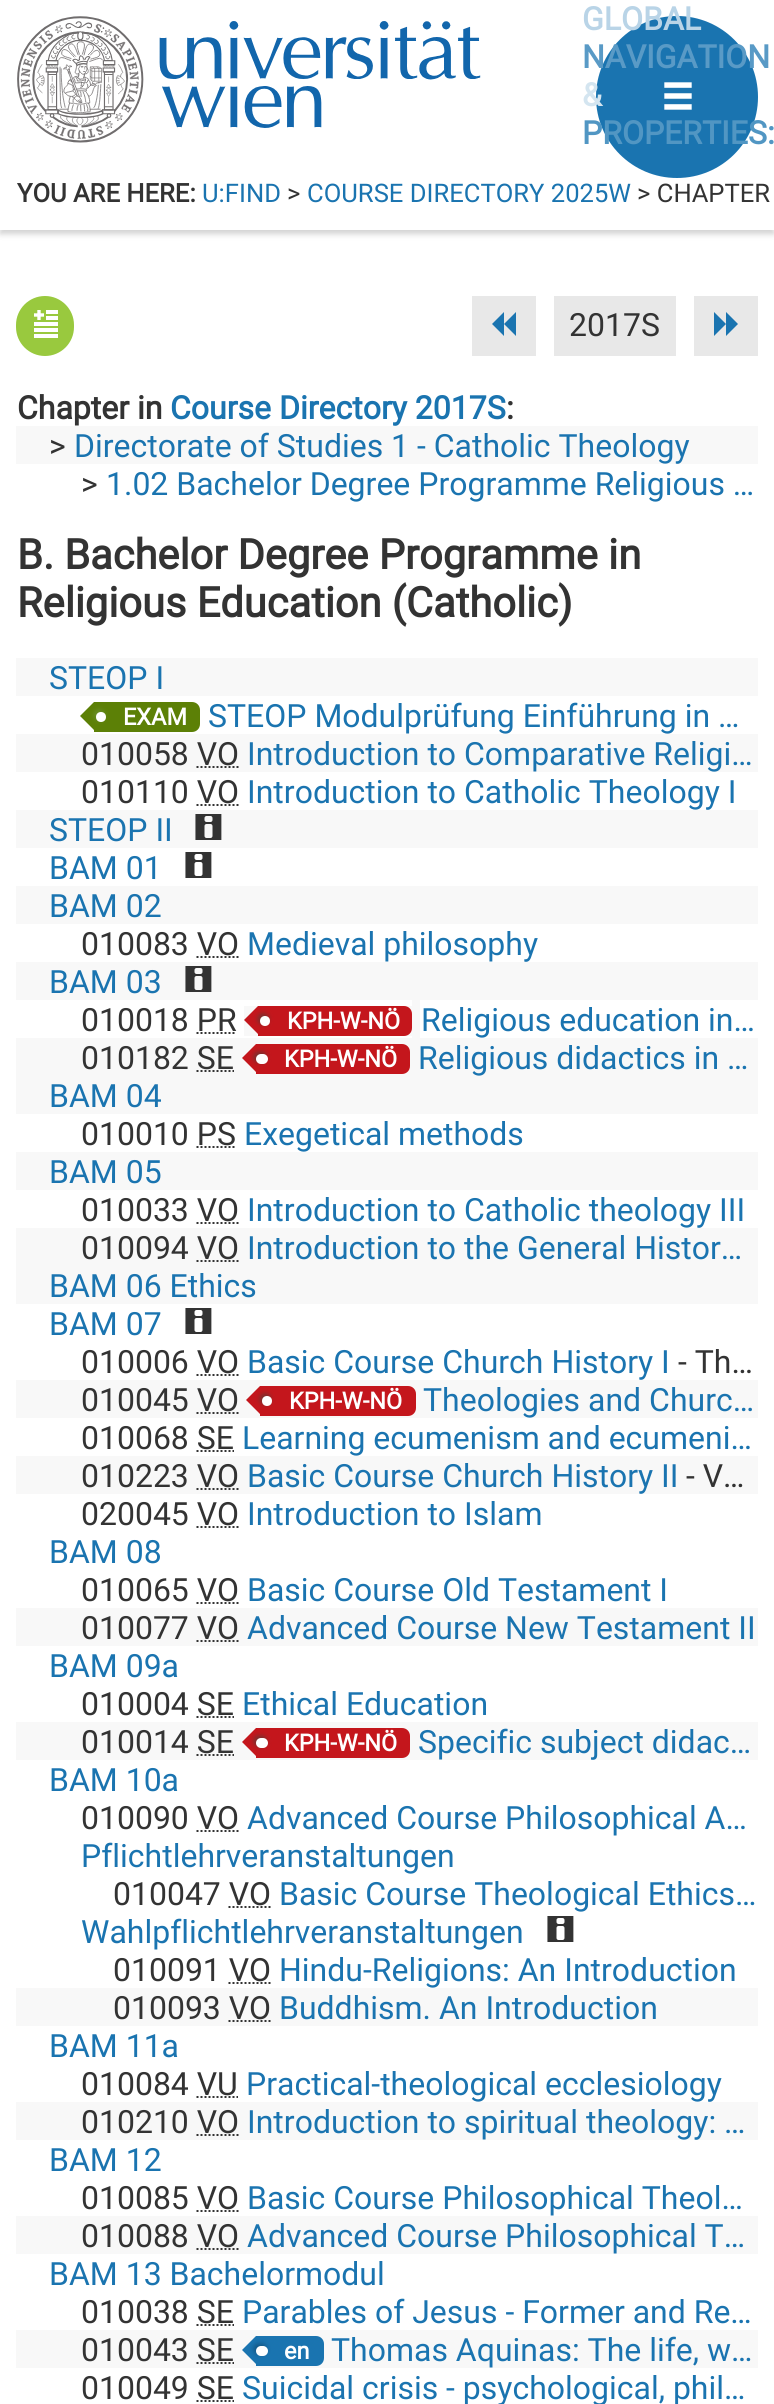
#include <cairo.h>
#include <math.h>
#include <stddef.h>

typedef struct { const char *family; double size; int italic, bold; unsigned color; } style_t;
static cairo_t *ctx;

static void ink(unsigned color) {
    cairo_set_source_rgb(ctx, (color >> 16) / 255.0, (color >> 8 & 255) / 255.0, (color & 255) / 255.0);
}

static void write(double x, double y, const char *s, const style_t *st) {
    cairo_select_font_face(ctx, st->family, st->italic ? CAIRO_FONT_SLANT_ITALIC : CAIRO_FONT_SLANT_NORMAL,
        st->bold ? CAIRO_FONT_WEIGHT_BOLD : CAIRO_FONT_WEIGHT_NORMAL);
    cairo_set_font_size(ctx, st->size);
    ink(st->color);
    cairo_move_to(ctx, x, y);
    cairo_show_text(ctx, s);
}

static void block(double x, double y, double w, double h, unsigned color) {
    ink(color);
    cairo_rectangle(ctx, x, y, w, h);
    cairo_fill(ctx);
}

static void round_path(double x, double y, double w, double h, double r) {
    cairo_new_sub_path(ctx);
    cairo_arc(ctx, x + w - r, y + h - r, r, 0, M_PI / 2);
    cairo_arc(ctx, x + r, y + h - r, r, M_PI / 2, M_PI);
    cairo_arc(ctx, x + r, y + r, r, M_PI, 1.5 * M_PI);
    cairo_arc(ctx, x + w - r, y + r, r, 1.5 * M_PI, 2 * M_PI);
    cairo_close_path(ctx);
}

static void blur_box(double x, double y, double w, double h, double r, double blur, double alpha) {
    cairo_push_group_with_content(ctx, CAIRO_CONTENT_ALPHA);
    cairo_set_operator(ctx, CAIRO_OPERATOR_SOURCE);
    for (int i = 15; i >= -15 && fmin(w, h) + blur * i / 3 > 0; i -= 2) {
        double e = blur * i / 6;
        cairo_set_source_rgba(ctx, 0, 0, 0, alpha * erfc((i - 1) / 8.5) / 2);
        round_path(x - e, y - e, w + 2 * e, h + 2 * e, fmax(0, fmin(r + e + blur * .6, fmin(w, h) / 2 + e)));
        cairo_fill(ctx);
    }
    cairo_pattern_t *soft = cairo_pop_group(ctx);
    cairo_mask(ctx, soft);
    cairo_pattern_destroy(soft);
}

static void paste(const char *path, double x, double y, double w, double h) {
    cairo_surface_t *image = cairo_image_surface_create_from_png(path);
    cairo_save(ctx);
    cairo_set_source_surface(ctx, image, x, y);
    cairo_rectangle(ctx, x, y, w, h);
    cairo_fill(ctx);
    cairo_restore(ctx);
    cairo_surface_destroy(image);
}

static const style_t s1 = {"Roboto", 32, 0, 1, 0xb9d4e7};
static const style_t s2 = {"Roboto", 32, 0, 1, 0x599ac6};
static const style_t s3 = {"Roboto", 32, 0, 1, 0xd4e5f0};
static const style_t s4 = {"Roboto", 32, 0, 1, 0x5196c3};
static const style_t s5 = {"Roboto", 25.6, 0, 1, 0x333333};
static const style_t s6 = {"Roboto", 25.6, 0, 0, 0x1a74b0};
static const style_t s7 = {"Roboto", 25.6, 0, 0, 0x333333};
static const style_t s8 = {"Roboto", 32, 0, 0, 0x333333};
static const style_t s9 = {"Roboto", 32, 0, 1, 0x333333};
static const style_t s10 = {"Roboto", 32, 0, 1, 0x1a74b0};
static const style_t s11 = {"Roboto", 32, 0, 0, 0x1a74b0};
static const style_t s12 = {"Roboto", 41.6, 0, 1, 0x333333};
static const style_t s13 = {"Roboto", 23.5, 0, 1, 0xffffff};

int main(void) {
    cairo_surface_t *surface = cairo_image_surface_create(CAIRO_FORMAT_RGB24, 774, 2404);
    ctx = cairo_create(surface);
    cairo_font_options_t *options = cairo_font_options_create();
    cairo_font_options_set_hint_metrics(options, CAIRO_HINT_METRICS_OFF);
    cairo_font_options_set_hint_style(options, CAIRO_HINT_STYLE_NONE);
    cairo_set_font_options(ctx, options);
    cairo_set_miter_limit(ctx, 4);
    ink(0xffffff);
    cairo_paint(ctx);
    ink(0x000000);
    blur_box(0, 4, 774, 230, 0, 3, 0.18);
    block(0, 0, 774, 230, 0xffffff);
    paste("pic1.png", 17, 16, 464, 127);
    ink(0x1a74b0);
    cairo_arc(ctx, 677, 97, 89, 0, 2 * M_PI);
    cairo_fill_preserve(ctx);
    ink(0xffffff);
    cairo_set_line_width(ctx, 16);
    cairo_stroke(ctx);
    paste("pic2.png", 664, 82, 28, 28);
    write(582, 30, "GLOBAL", &s1);
    write(582, 68, "NAVIGATION", &s2);
    write(582, 106, "&", &s3);
    write(582, 144, "PROPERTIES:", &s4);
    write(17, 202, "YOU ARE HERE:", &s5);
    write(202, 202, "U:FIND", &s6);
    write(287, 202, ">", &s7);
    write(307, 202, "COURSE DIRECTORY 2025W", &s6);
    write(637, 202, "> CHAPTER", &s7);
    ink(0x99c93e);
    round_path(16, 296, 58, 60, 29);
    cairo_fill(ctx);
    paste("pic3.png", 34, 310, 24, 28);
    block(472, 296, 64, 60, 0xe8e8e8);
    ink(0x1a74b0);
    cairo_new_path(ctx);
    cairo_move_to(ctx, 504, 312);
    cairo_line_to(ctx, 504, 336);
    cairo_line_to(ctx, 492, 324);
    cairo_close_path(ctx);
    cairo_move_to(ctx, 516, 312);
    cairo_line_to(ctx, 516, 336);
    cairo_line_to(ctx, 504, 324);
    cairo_close_path(ctx);
    cairo_fill(ctx);
    block(554, 296, 122, 60, 0xe8e8e8);
    write(569, 336, "2017S", &s8);
    block(694, 296, 64, 60, 0xe8e8e8);
    ink(0x1a74b0);
    cairo_new_path(ctx);
    cairo_move_to(ctx, 714, 312);
    cairo_line_to(ctx, 726, 324);
    cairo_line_to(ctx, 714, 336);
    cairo_close_path(ctx);
    cairo_move_to(ctx, 726, 312);
    cairo_line_to(ctx, 738, 324);
    cairo_line_to(ctx, 726, 336);
    cairo_close_path(ctx);
    cairo_fill(ctx);
    write(17, 419, "Chapter in", &s9);
    write(170, 419, "Course Directory 2017S", &s10);
    write(506, 419, ":", &s9);
    block(16, 426, 742, 38, 0xf8f8f8);
    write(49, 457, ">", &s8);
    write(74, 457, "Directorate of Studies 1 - Catholic Theology", &s11);
    write(81, 495, ">", &s8);
    write(106, 495, "1.02 Bachelor Degree Programme Religious …", &s11);
    write(17, 569, "B. Bachelor Degree Programme in", &s12);
    write(17, 617, "Religious Education (Catholic)", &s12);
    block(16, 658, 742, 38, 0xf8f8f8);
    write(49, 689, "STEOP I", &s11);
    ink(0x5c8006);
    cairo_new_path(ctx);
    cairo_move_to(ctx, 94, 702);
    cairo_line_to(ctx, 94, 730);
    cairo_line_to(ctx, 80, 716);
    cairo_close_path(ctx);
    cairo_fill(ctx);
    cairo_new_path(ctx);
    cairo_move_to(ctx, 94, 702);
    cairo_line_to(ctx, 192, 702);
    cairo_curve_to(ctx, 196.5, 702, 200, 705.5, 200, 710);
    cairo_line_to(ctx, 200, 724);
    cairo_curve_to(ctx, 200, 728.5, 196.5, 732, 192, 732);
    cairo_line_to(ctx, 94, 732);
    cairo_close_path(ctx);
    cairo_fill(ctx);
    ink(0x688d29);
    blur_box(94, 710, 10, 10, 5, 2.5, 1);
    ink(0xffffff);
    cairo_arc(ctx, 101, 717, 5, 0, 2 * M_PI);
    cairo_fill(ctx);
    write(123, 725, "EXAM", &s13);
    write(208, 727, "STEOP Modulprüfung Einführung in …", &s11);
    block(16, 734, 742, 38, 0xf8f8f8);
    write(81, 765, "010058 VO", &s8);
    write(247, 765, "Introduction to Comparative Religi…", &s11);
    cairo_new_path(ctx);
    cairo_move_to(ctx, 196.5, 767);
    cairo_line_to(ctx, 239, 767);
    ink(0x333333);
    cairo_set_line_width(ctx, 2);
    cairo_set_dash(ctx, (double[]){2, 2}, 2, 0);
    cairo_stroke(ctx);
    write(81, 803, "010110 VO", &s8);
    write(247, 803, "Introduction to Catholic Theology I", &s11);
    cairo_new_path(ctx);
    cairo_move_to(ctx, 196.5, 805);
    cairo_line_to(ctx, 239, 805);
    ink(0x333333);
    cairo_stroke(ctx);
    block(16, 810, 742, 38, 0xf8f8f8);
    write(49, 841, "STEOP II", &s11);
    paste("pic4.png", 195, 814, 27, 26);
    write(49, 879, "BAM 01", &s11);
    paste("pic5.png", 185, 852, 27, 26);
    block(16, 886, 742, 38, 0xf8f8f8);
    write(49, 917, "BAM 02", &s11);
    write(81, 955, "010083 VO", &s8);
    write(247, 955, "Medieval philosophy", &s11);
    cairo_new_path(ctx);
    cairo_move_to(ctx, 196.5, 957);
    cairo_line_to(ctx, 239, 957);
    ink(0x333333);
    cairo_stroke(ctx);
    block(16, 962, 742, 38, 0xf8f8f8);
    write(49, 993, "BAM 03", &s11);
    paste("pic4.png", 185, 966, 27, 26);
    write(81, 1031, "010018 PR", &s8);
    block(244, 1006, 168, 30, 0xf8f8f8);
    block(412, 1000, 8, 38, 0xf8f8f8);
    ink(0xc4161c);
    cairo_new_path(ctx);
    cairo_move_to(ctx, 258, 1006);
    cairo_line_to(ctx, 258, 1034);
    cairo_line_to(ctx, 244, 1020);
    cairo_close_path(ctx);
    cairo_fill(ctx);
    cairo_new_path(ctx);
    cairo_move_to(ctx, 258, 1006);
    cairo_line_to(ctx, 404, 1006);
    cairo_curve_to(ctx, 408.5, 1006, 412, 1009.5, 412, 1014);
    cairo_line_to(ctx, 412, 1028);
    cairo_curve_to(ctx, 412, 1032.5, 408.5, 1036, 404, 1036);
    cairo_line_to(ctx, 258, 1036);
    cairo_close_path(ctx);
    cairo_fill(ctx);
    ink(0x723230);
    blur_box(258, 1014, 10, 10, 5, 2.5, 1);
    ink(0xffffff);
    cairo_arc(ctx, 265, 1021, 5, 0, 2 * M_PI);
    cairo_fill(ctx);
    write(287, 1029, "KPH-W-NÖ", &s13);
    write(421, 1031, "Religious education in…", &s11);
    cairo_new_path(ctx);
    cairo_move_to(ctx, 196.5, 1033);
    cairo_line_to(ctx, 236.5, 1033);
    ink(0x333333);
    cairo_stroke(ctx);
    block(16, 1038, 742, 76, 0xf8f8f8);
    write(81, 1069, "010182 SE", &s8);
    ink(0xc4161c);
    cairo_new_path(ctx);
    cairo_move_to(ctx, 256, 1044);
    cairo_line_to(ctx, 256, 1072);
    cairo_line_to(ctx, 242, 1058);
    cairo_close_path(ctx);
    cairo_fill(ctx);
    cairo_new_path(ctx);
    cairo_move_to(ctx, 256, 1044);
    cairo_line_to(ctx, 402, 1044);
    cairo_curve_to(ctx, 406.5, 1044, 410, 1047.5, 410, 1052);
    cairo_line_to(ctx, 410, 1066);
    cairo_curve_to(ctx, 410, 1070.5, 406.5, 1074, 402, 1074);
    cairo_line_to(ctx, 256, 1074);
    cairo_close_path(ctx);
    cairo_fill(ctx);
    ink(0x723230);
    blur_box(254, 1052, 12, 10, 5, 2.5, 1);
    ink(0xffffff);
    round_path(256, 1054, 12, 10, 5);
    cairo_fill(ctx);
    write(284, 1067, "KPH-W-NÖ", &s13);
    write(418, 1069, "Religious didactics in …", &s11);
    cairo_new_path(ctx);
    cairo_move_to(ctx, 196.5, 1071);
    cairo_line_to(ctx, 234, 1071);
    ink(0x333333);
    cairo_stroke(ctx);
    write(49, 1107, "BAM 04", &s11);
    write(81, 1145, "010010 PS", &s8);
    write(244, 1145, "Exegetical methods", &s11);
    cairo_new_path(ctx);
    cairo_move_to(ctx, 196.5, 1147);
    cairo_line_to(ctx, 236, 1147);
    ink(0x333333);
    cairo_stroke(ctx);
    block(16, 1152, 742, 38, 0xf8f8f8);
    write(49, 1183, "BAM 05", &s11);
    write(81, 1221, "010033 VO", &s8);
    write(247, 1221, "Introduction to Catholic theology III", &s11);
    cairo_new_path(ctx);
    cairo_move_to(ctx, 196.5, 1223);
    cairo_line_to(ctx, 239, 1223);
    ink(0x333333);
    cairo_stroke(ctx);
    block(16, 1228, 742, 76, 0xf8f8f8);
    write(81, 1259, "010094 VO", &s8);
    write(247, 1259, "Introduction to the General Histor…", &s11);
    cairo_new_path(ctx);
    cairo_move_to(ctx, 196.5, 1261);
    cairo_line_to(ctx, 239, 1261);
    ink(0x333333);
    cairo_stroke(ctx);
    write(49, 1297, "BAM 06 Ethics", &s11);
    write(49, 1335, "BAM 07", &s11);
    paste("pic5.png", 185, 1308, 27, 26);
    write(81, 1373, "010006 VO", &s8);
    write(247, 1373, "Basic Course Church History I", &s11);
    write(678, 1373, "- Th…", &s8);
    cairo_new_path(ctx);
    cairo_move_to(ctx, 196.5, 1375);
    cairo_line_to(ctx, 239, 1375);
    cairo_stroke(ctx);
    block(16, 1380, 742, 38, 0xf8f8f8);
    write(81, 1411, "010045 VO", &s8);
    ink(0xc4161c);
    cairo_new_path(ctx);
    cairo_move_to(ctx, 260, 1386);
    cairo_line_to(ctx, 260, 1414);
    cairo_line_to(ctx, 246, 1400);
    cairo_close_path(ctx);
    cairo_fill(ctx);
    cairo_new_path(ctx);
    cairo_move_to(ctx, 260, 1386);
    cairo_line_to(ctx, 408, 1386);
    cairo_curve_to(ctx, 412.5, 1386, 416, 1389.5, 416, 1394);
    cairo_line_to(ctx, 416, 1408);
    cairo_curve_to(ctx, 416, 1412.5, 412.5, 1416, 408, 1416);
    cairo_line_to(ctx, 260, 1416);
    cairo_close_path(ctx);
    cairo_fill(ctx);
    ink(0x723230);
    blur_box(260, 1394, 10, 10, 5, 2.5, 1);
    ink(0xffffff);
    cairo_arc(ctx, 267, 1401, 5, 0, 2 * M_PI);
    cairo_fill(ctx);
    write(289, 1409, "KPH-W-NÖ", &s13);
    write(423, 1411, "Theologies and Churc…", &s11);
    cairo_new_path(ctx);
    cairo_move_to(ctx, 196.5, 1413);
    cairo_line_to(ctx, 239, 1413);
    ink(0x333333);
    cairo_stroke(ctx);
    write(81, 1449, "010068 SE", &s8);
    write(242, 1449, "Learning ecumenism and ecumeni…", &s11);
    cairo_new_path(ctx);
    cairo_move_to(ctx, 196.5, 1451);
    cairo_line_to(ctx, 234, 1451);
    ink(0x333333);
    cairo_stroke(ctx);
    block(16, 1456, 742, 38, 0xf8f8f8);
    write(81, 1487, "010223 VO", &s8);
    write(247, 1487, "Basic Course Church History II", &s11);
    write(686, 1487, "- V…", &s8);
    cairo_new_path(ctx);
    cairo_move_to(ctx, 196.5, 1489);
    cairo_line_to(ctx, 239, 1489);
    cairo_stroke(ctx);
    write(81, 1525, "020045 VO", &s8);
    write(247, 1525, "Introduction to Islam", &s11);
    cairo_new_path(ctx);
    cairo_move_to(ctx, 196.5, 1527);
    cairo_line_to(ctx, 239, 1527);
    ink(0x333333);
    cairo_stroke(ctx);
    write(49, 1563, "BAM 08", &s11);
    write(81, 1601, "010065 VO", &s8);
    write(247, 1601, "Basic Course Old Testament I", &s11);
    cairo_new_path(ctx);
    cairo_move_to(ctx, 196.5, 1603);
    cairo_line_to(ctx, 239, 1603);
    ink(0x333333);
    cairo_stroke(ctx);
    block(16, 1608, 742, 38, 0xf8f8f8);
    write(81, 1639, "010077 VO", &s8);
    write(247, 1639, "Advanced Course New Testament II", &s11);
    cairo_new_path(ctx);
    cairo_move_to(ctx, 196.5, 1641);
    cairo_line_to(ctx, 239, 1641);
    ink(0x333333);
    cairo_stroke(ctx);
    write(49, 1677, "BAM 09a", &s11);
    write(81, 1715, "010004 SE", &s8);
    write(242, 1715, "Ethical Education", &s11);
    cairo_new_path(ctx);
    cairo_move_to(ctx, 196.5, 1717);
    cairo_line_to(ctx, 234, 1717);
    ink(0x333333);
    cairo_stroke(ctx);
    block(16, 1722, 742, 38, 0xf8f8f8);
    write(81, 1753, "010014 SE", &s8);
    ink(0xc4161c);
    cairo_new_path(ctx);
    cairo_move_to(ctx, 256, 1728);
    cairo_line_to(ctx, 256, 1756);
    cairo_line_to(ctx, 242, 1742);
    cairo_close_path(ctx);
    cairo_fill(ctx);
    cairo_new_path(ctx);
    cairo_move_to(ctx, 256, 1728);
    cairo_line_to(ctx, 402, 1728);
    cairo_curve_to(ctx, 406.5, 1728, 410, 1731.5, 410, 1736);
    cairo_line_to(ctx, 410, 1750);
    cairo_curve_to(ctx, 410, 1754.5, 406.5, 1758, 402, 1758);
    cairo_line_to(ctx, 256, 1758);
    cairo_close_path(ctx);
    cairo_fill(ctx);
    ink(0x723230);
    blur_box(254, 1736, 12, 10, 5, 2.5, 1);
    ink(0xffffff);
    round_path(256, 1738, 12, 10, 5);
    cairo_fill(ctx);
    write(284, 1751, "KPH-W-NÖ", &s13);
    write(418, 1753, "Specific subject didac…", &s11);
    cairo_new_path(ctx);
    cairo_move_to(ctx, 196.5, 1755);
    cairo_line_to(ctx, 234, 1755);
    ink(0x333333);
    cairo_stroke(ctx);
    write(49, 1791, "BAM 10a", &s11);
    write(81, 1829, "010090 VO", &s8);
    write(247, 1829, "Advanced Course Philosophical A…", &s11);
    cairo_new_path(ctx);
    cairo_move_to(ctx, 196.5, 1831);
    cairo_line_to(ctx, 239, 1831);
    ink(0x333333);
    cairo_stroke(ctx);
    write(81, 1867, "Pflichtlehrveranstaltungen", &s11);
    write(113, 1905, "010047 VO", &s8);
    write(279, 1905, "Basic Course Theological Ethics…", &s11);
    cairo_new_path(ctx);
    cairo_move_to(ctx, 228.5, 1907);
    cairo_line_to(ctx, 271, 1907);
    ink(0x333333);
    cairo_stroke(ctx);
    write(81, 1943, "Wahlpflichtlehrveranstaltungen", &s11);
    paste("pic5.png", 547, 1916, 27, 26);
    write(113, 1981, "010091 VO", &s8);
    write(279, 1981, "Hindu-Religions: An Introduction", &s11);
    cairo_new_path(ctx);
    cairo_move_to(ctx, 228.5, 1983);
    cairo_line_to(ctx, 271, 1983);
    ink(0x333333);
    cairo_stroke(ctx);
    block(16, 1988, 742, 38, 0xf8f8f8);
    write(113, 2019, "010093 VO", &s8);
    write(279, 2019, "Buddhism. An Introduction", &s11);
    cairo_new_path(ctx);
    cairo_move_to(ctx, 228.5, 2021);
    cairo_line_to(ctx, 271, 2021);
    ink(0x333333);
    cairo_stroke(ctx);
    write(49, 2057, "BAM 11a", &s11);
    write(81, 2095, "010084 VU", &s8);
    write(246, 2095, "Practical-theological ecclesiology", &s11);
    cairo_new_path(ctx);
    cairo_move_to(ctx, 196.5, 2097);
    cairo_line_to(ctx, 238, 2097);
    ink(0x333333);
    cairo_stroke(ctx);
    block(16, 2102, 742, 38, 0xf8f8f8);
    write(81, 2133, "010210 VO", &s8);
    write(247, 2133, "Introduction to spiritual theology: …", &s11);
    cairo_new_path(ctx);
    cairo_move_to(ctx, 196.5, 2135);
    cairo_line_to(ctx, 239, 2135);
    ink(0x333333);
    cairo_stroke(ctx);
    write(49, 2171, "BAM 12", &s11);
    write(81, 2209, "010085 VO", &s8);
    write(247, 2209, "Basic Course Philosophical Theol…", &s11);
    cairo_new_path(ctx);
    cairo_move_to(ctx, 196.5, 2211);
    cairo_line_to(ctx, 239, 2211);
    ink(0x333333);
    cairo_stroke(ctx);
    block(16, 2216, 742, 38, 0xf8f8f8);
    write(81, 2247, "010088 VO", &s8);
    write(247, 2247, "Advanced Course Philosophical T…", &s11);
    cairo_new_path(ctx);
    cairo_move_to(ctx, 196.5, 2249);
    cairo_line_to(ctx, 239, 2249);
    ink(0x333333);
    cairo_stroke(ctx);
    write(49, 2285, "BAM 13 Bachelormodul", &s11);
    write(81, 2323, "010038 SE", &s8);
    write(242, 2323, "Parables of Jesus - Former and Re…", &s11);
    cairo_new_path(ctx);
    cairo_move_to(ctx, 196.5, 2325);
    cairo_line_to(ctx, 234, 2325);
    ink(0x333333);
    cairo_stroke(ctx);
    block(16, 2330, 742, 38, 0xf8f8f8);
    write(81, 2361, "010043 SE", &s8);
    ink(0x1a74b0);
    cairo_new_path(ctx);
    cairo_move_to(ctx, 256, 2336);
    cairo_line_to(ctx, 256, 2364);
    cairo_line_to(ctx, 242, 2350);
    cairo_close_path(ctx);
    cairo_fill(ctx);
    cairo_new_path(ctx);
    cairo_move_to(ctx, 256, 2336);
    cairo_line_to(ctx, 316, 2336);
    cairo_curve_to(ctx, 320.5, 2336, 324, 2339.5, 324, 2344);
    cairo_line_to(ctx, 324, 2358);
    cairo_curve_to(ctx, 324, 2362.5, 320.5, 2366, 316, 2366);
    cairo_line_to(ctx, 256, 2366);
    cairo_close_path(ctx);
    cairo_fill(ctx);
    ink(0x145683);
    blur_box(254, 2344, 12, 10, 5, 2.5, 1);
    ink(0xffffff);
    round_path(256, 2346, 12, 10, 5);
    cairo_fill(ctx);
    write(284, 2359, "en", &s13);
    write(331, 2361, "Thomas Aquinas: The life, w…", &s11);
    cairo_new_path(ctx);
    cairo_move_to(ctx, 196.5, 2363);
    cairo_line_to(ctx, 234, 2363);
    ink(0x333333);
    cairo_stroke(ctx);
    write(81, 2399, "010049 SE", &s8);
    write(242, 2399, "Suicidal crisis - psychological, phil…", &s11);
    cairo_new_path(ctx);
    cairo_move_to(ctx, 196.5, 2401);
    cairo_line_to(ctx, 234, 2401);
    ink(0x333333);
    cairo_stroke(ctx);
    cairo_surface_write_to_png(surface, "screenshot.png");
    cairo_font_options_destroy(options);
    cairo_destroy(ctx);
    cairo_surface_destroy(surface);
    return 0;
}
